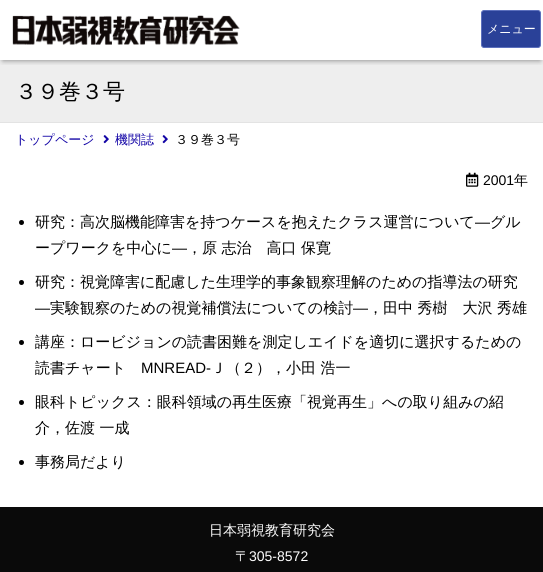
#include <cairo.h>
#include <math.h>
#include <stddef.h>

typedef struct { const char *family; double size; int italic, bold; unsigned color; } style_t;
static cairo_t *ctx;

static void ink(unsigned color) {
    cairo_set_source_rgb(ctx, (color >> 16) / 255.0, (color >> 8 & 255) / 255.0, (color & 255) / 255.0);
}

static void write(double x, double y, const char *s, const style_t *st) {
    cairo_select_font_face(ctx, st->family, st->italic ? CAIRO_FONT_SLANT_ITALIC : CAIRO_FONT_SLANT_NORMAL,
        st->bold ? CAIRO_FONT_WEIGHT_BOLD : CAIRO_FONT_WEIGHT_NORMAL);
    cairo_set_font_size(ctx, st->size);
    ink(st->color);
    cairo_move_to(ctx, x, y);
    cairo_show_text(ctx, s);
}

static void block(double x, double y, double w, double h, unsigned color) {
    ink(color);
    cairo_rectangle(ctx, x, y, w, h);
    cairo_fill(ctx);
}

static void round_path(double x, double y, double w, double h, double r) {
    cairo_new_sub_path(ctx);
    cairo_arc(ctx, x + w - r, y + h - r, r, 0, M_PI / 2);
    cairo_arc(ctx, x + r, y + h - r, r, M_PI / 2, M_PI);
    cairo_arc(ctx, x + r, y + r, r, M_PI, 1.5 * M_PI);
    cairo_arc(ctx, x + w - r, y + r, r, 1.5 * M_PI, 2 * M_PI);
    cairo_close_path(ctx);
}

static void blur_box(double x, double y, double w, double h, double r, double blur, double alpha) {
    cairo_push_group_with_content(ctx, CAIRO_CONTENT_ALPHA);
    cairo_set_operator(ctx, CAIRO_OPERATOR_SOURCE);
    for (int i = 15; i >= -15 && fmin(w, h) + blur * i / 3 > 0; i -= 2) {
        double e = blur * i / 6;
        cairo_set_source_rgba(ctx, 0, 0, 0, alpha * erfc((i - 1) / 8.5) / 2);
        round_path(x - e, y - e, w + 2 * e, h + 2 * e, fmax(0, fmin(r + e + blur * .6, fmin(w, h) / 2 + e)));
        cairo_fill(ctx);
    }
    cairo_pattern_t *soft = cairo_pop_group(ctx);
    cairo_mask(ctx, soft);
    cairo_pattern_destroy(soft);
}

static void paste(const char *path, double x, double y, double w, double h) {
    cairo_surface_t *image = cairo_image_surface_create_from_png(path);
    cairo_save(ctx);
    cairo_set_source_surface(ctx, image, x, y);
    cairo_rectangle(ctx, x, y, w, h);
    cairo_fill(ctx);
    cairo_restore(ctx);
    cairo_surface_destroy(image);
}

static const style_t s1 = {"WenQuanYi Zen Hei Medium", 12, 0, 0, 0xffffff};
static const style_t s2 = {"WenQuanYi Zen Hei Medium", 22, 0, 0, 0x000000};
static const style_t s3 = {"WenQuanYi Zen Hei Medium", 13, 0, 0, 0x1305a6};
static const style_t s4 = {"WenQuanYi Zen Hei Medium", 13, 0, 0, 0x000000};
static const style_t s5 = {"Liberation Sans", 14, 0, 0, 0x000000};
static const style_t s6 = {"WenQuanYi Zen Hei Medium", 14, 0, 0, 0x000000};
static const style_t s7 = {"WenQuanYi Zen Hei Medium", 15, 0, 0, 0x000000};
static const style_t s8 = {"Liberation Sans", 15, 0, 0, 0x000000};
static const style_t s9 = {"WenQuanYi Zen Hei Medium", 14, 0, 0, 0xffffff};
static const style_t s10 = {"Liberation Sans", 14, 0, 0, 0xffffff};

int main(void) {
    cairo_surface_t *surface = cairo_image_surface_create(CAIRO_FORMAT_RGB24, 543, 572);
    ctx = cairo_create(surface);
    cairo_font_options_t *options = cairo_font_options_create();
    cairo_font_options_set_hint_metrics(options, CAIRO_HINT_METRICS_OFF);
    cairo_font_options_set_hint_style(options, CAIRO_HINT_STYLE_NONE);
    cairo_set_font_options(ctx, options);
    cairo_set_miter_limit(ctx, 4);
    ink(0xffffff);
    cairo_paint(ctx);
    block(0, 60, 543, 62, 0xeeeeee);
    cairo_save(ctx);
    cairo_rectangle(ctx, 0, 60, 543, 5);
    cairo_clip(ctx);
    ink(0x000000);
    blur_box(3, 6, 537, 54, 0, 3, 0.5);
    cairo_restore(ctx);
    paste("pic1.png", 12, 15, 228, 30);
    ink(0x2a4198);
    round_path(481.5, 10.5, 59, 37, 2.5);
    cairo_fill_preserve(ctx);
    ink(0x5c70bd);
    cairo_set_line_width(ctx, 1);
    cairo_stroke(ctx);
    write(487, 33, "メニュー", &s1);
    block(0, 122, 543, 1, 0xe3e3e3);
    write(15, 99, "３９巻３号", &s2);
    write(15, 144, "トップページ", &s3);
    paste("pic2.png", 103, 135, 6, 9);
    write(115, 144, "機関誌", &s3);
    paste("pic2.png", 162, 135, 6, 9);
    write(175, 144, "３９巻３号", &s4);
    paste("pic3.png", 466, 172, 13, 15);
    write(483, 185, "2001", &s5);
    write(514, 185, "年", &s6);
    cairo_new_path(ctx);
    cairo_arc(ctx, 21.5, 222.5, 2.5, 0, 2 * M_PI);
    cairo_fill(ctx);
    write(35, 227, "研究：高次脳機能障害を持つケースを抱えたクラス運営について", &s7);
    write(475, 227, "―", &s8);
    write(490, 227, "グル", &s7);
    write(35, 253, "ープワークを中心に", &s7);
    write(172, 253, "―", &s8);
    write(187, 253, "，原 志治　高口 保寛", &s7);
    cairo_new_path(ctx);
    cairo_arc(ctx, 21.5, 282.5, 2.5, 0, 2 * M_PI);
    cairo_fill(ctx);
    write(35, 287, "研究：視覚障害に配慮した生理学的事象観察理解のための指導法の研究", &s7);
    write(35, 313, "―", &s8);
    write(50, 313, "実験観察のための視覚補償法についての検討", &s7);
    write(353, 313, "―", &s8);
    write(368, 313, "，田中 秀樹　大沢 秀雄", &s7);
    cairo_new_path(ctx);
    cairo_arc(ctx, 21.5, 342.5, 2.5, 0, 2 * M_PI);
    cairo_fill(ctx);
    write(35, 347, "講座：ロービジョンの読書困難を測定しエイドを適切に選択するための", &s7);
    write(35, 373, "読書チャート", &s7);
    write(141, 373, "MNREAD-", &s8);
    write(211, 373, "Ｊ（２），小田 浩一", &s7);
    cairo_new_path(ctx);
    cairo_arc(ctx, 21.5, 402.5, 2.5, 0, 2 * M_PI);
    cairo_fill(ctx);
    write(35, 407, "眼科トピックス：眼科領域の再生医療「視覚再生」への取り組みの紹", &s7);
    write(35, 433, "介，佐渡 一成", &s7);
    cairo_new_path(ctx);
    cairo_arc(ctx, 21.5, 462.5, 2.5, 0, 2 * M_PI);
    cairo_fill(ctx);
    write(35, 467, "事務局だより", &s7);
    block(0, 507, 543, 65, 0x0a0a0a);
    write(209, 535, "日本弱視教育研究会", &s9);
    write(235, 561, "〒", &s9);
    write(249, 561, "305-8572", &s10);
    cairo_surface_write_to_png(surface, "screenshot.png");
    cairo_font_options_destroy(options);
    cairo_destroy(ctx);
    cairo_surface_destroy(surface);
    return 0;
}
